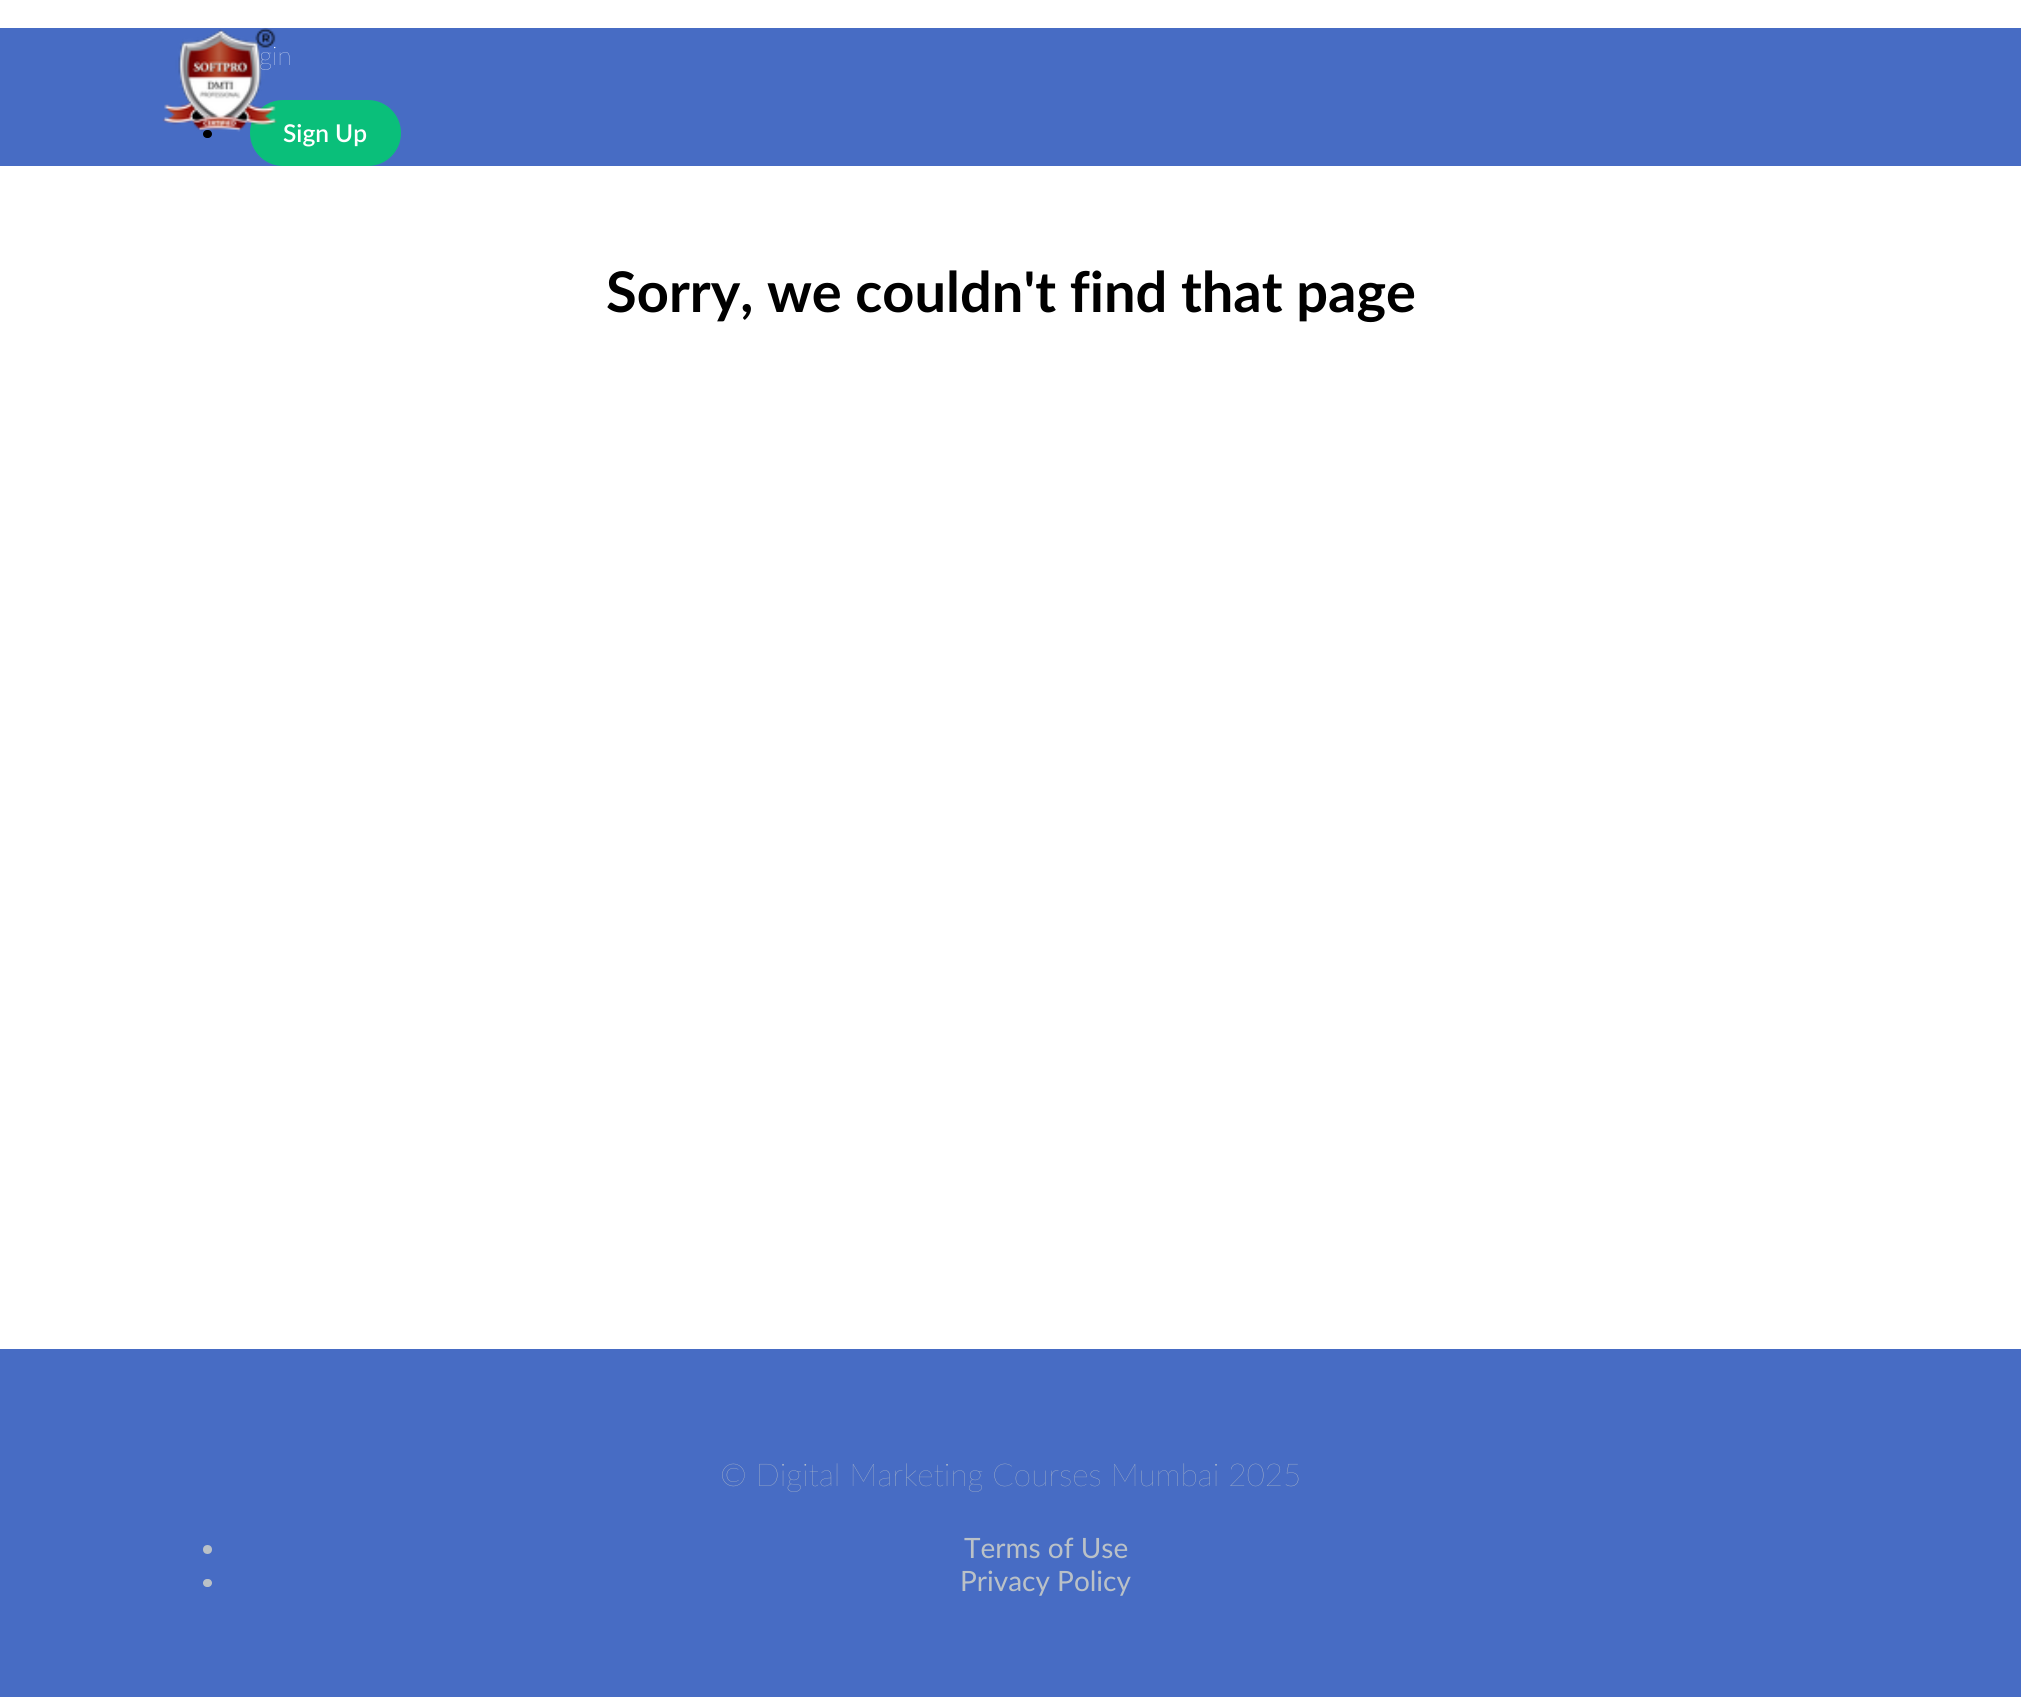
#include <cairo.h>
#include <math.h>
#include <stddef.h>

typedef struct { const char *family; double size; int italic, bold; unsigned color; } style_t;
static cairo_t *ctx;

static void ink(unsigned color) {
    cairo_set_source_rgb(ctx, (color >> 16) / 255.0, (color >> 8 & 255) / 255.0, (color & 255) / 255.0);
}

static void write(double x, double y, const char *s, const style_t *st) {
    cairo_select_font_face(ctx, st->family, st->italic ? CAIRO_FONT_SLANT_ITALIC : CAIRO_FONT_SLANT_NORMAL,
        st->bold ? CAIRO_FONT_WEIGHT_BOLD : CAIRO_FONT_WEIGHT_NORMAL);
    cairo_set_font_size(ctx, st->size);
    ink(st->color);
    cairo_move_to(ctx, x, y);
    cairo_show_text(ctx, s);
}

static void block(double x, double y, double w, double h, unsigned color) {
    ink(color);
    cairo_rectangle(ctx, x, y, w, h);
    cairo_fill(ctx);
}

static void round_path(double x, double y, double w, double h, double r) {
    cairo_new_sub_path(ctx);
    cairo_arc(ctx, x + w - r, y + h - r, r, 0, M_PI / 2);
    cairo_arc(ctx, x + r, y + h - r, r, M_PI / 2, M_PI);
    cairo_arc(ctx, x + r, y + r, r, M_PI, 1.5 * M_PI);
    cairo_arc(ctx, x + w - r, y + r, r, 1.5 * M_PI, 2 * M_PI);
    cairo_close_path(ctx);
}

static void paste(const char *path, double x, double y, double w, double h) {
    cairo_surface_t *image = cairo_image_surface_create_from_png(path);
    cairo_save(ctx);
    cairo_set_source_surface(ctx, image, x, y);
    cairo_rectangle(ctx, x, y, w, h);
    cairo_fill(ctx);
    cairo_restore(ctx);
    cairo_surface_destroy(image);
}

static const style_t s1 = {"Lato ExtraLight", 26, 0, 0, 0xffffff};
static const style_t s2 = {"Lato SemiBold", 24.5, 0, 0, 0xffffff};
static const style_t s3 = {"Lato", 56, 0, 1, 0x000000};
static const style_t s4 = {"Lato ExtraLight", 31.5, 0, 0, 0xbac1c7};
static const style_t s5 = {"Lato", 28, 0, 0, 0xbac1c7};

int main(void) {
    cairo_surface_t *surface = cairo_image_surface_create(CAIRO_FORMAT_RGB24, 2021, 1697);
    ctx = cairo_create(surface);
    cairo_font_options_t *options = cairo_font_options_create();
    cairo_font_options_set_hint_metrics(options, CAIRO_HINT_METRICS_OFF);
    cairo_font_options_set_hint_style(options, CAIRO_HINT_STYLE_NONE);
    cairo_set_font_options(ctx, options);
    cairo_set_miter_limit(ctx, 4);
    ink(0xffffff);
    cairo_paint(ctx);
    block(0, 28, 2021, 138, 0x476cc4);
    write(259, 65, "gin", &s1);
    ink(0x000000);
    round_path(203, 130, 9, 8, 4);
    cairo_fill(ctx);
    ink(0x0abf7a);
    round_path(251, 101, 149, 64, 32);
    cairo_fill_preserve(ctx);
    cairo_stroke(ctx);
    paste("pic1.png", 162, 28, 115, 104);
    write(283, 142, "Sign Up", &s2);
    write(606, 312, "Sorry, we couldn't find that page", &s3);
    block(0, 1349, 2021, 348, 0x476cc4);
    write(720, 1486, "© Digital Marketing Courses Mumbai 2025", &s4);
    cairo_new_path(ctx);
    cairo_arc(ctx, 207.5, 1549.5, 4.5, 0, 2 * M_PI);
    cairo_fill(ctx);
    write(964, 1558, "Terms of Use", &s5);
    round_path(203, 1579, 9, 8, 4);
    cairo_fill(ctx);
    write(960, 1591, "Privacy Policy", &s5);
    cairo_surface_write_to_png(surface, "screenshot.png");
    cairo_font_options_destroy(options);
    cairo_destroy(ctx);
    cairo_surface_destroy(surface);
    return 0;
}
